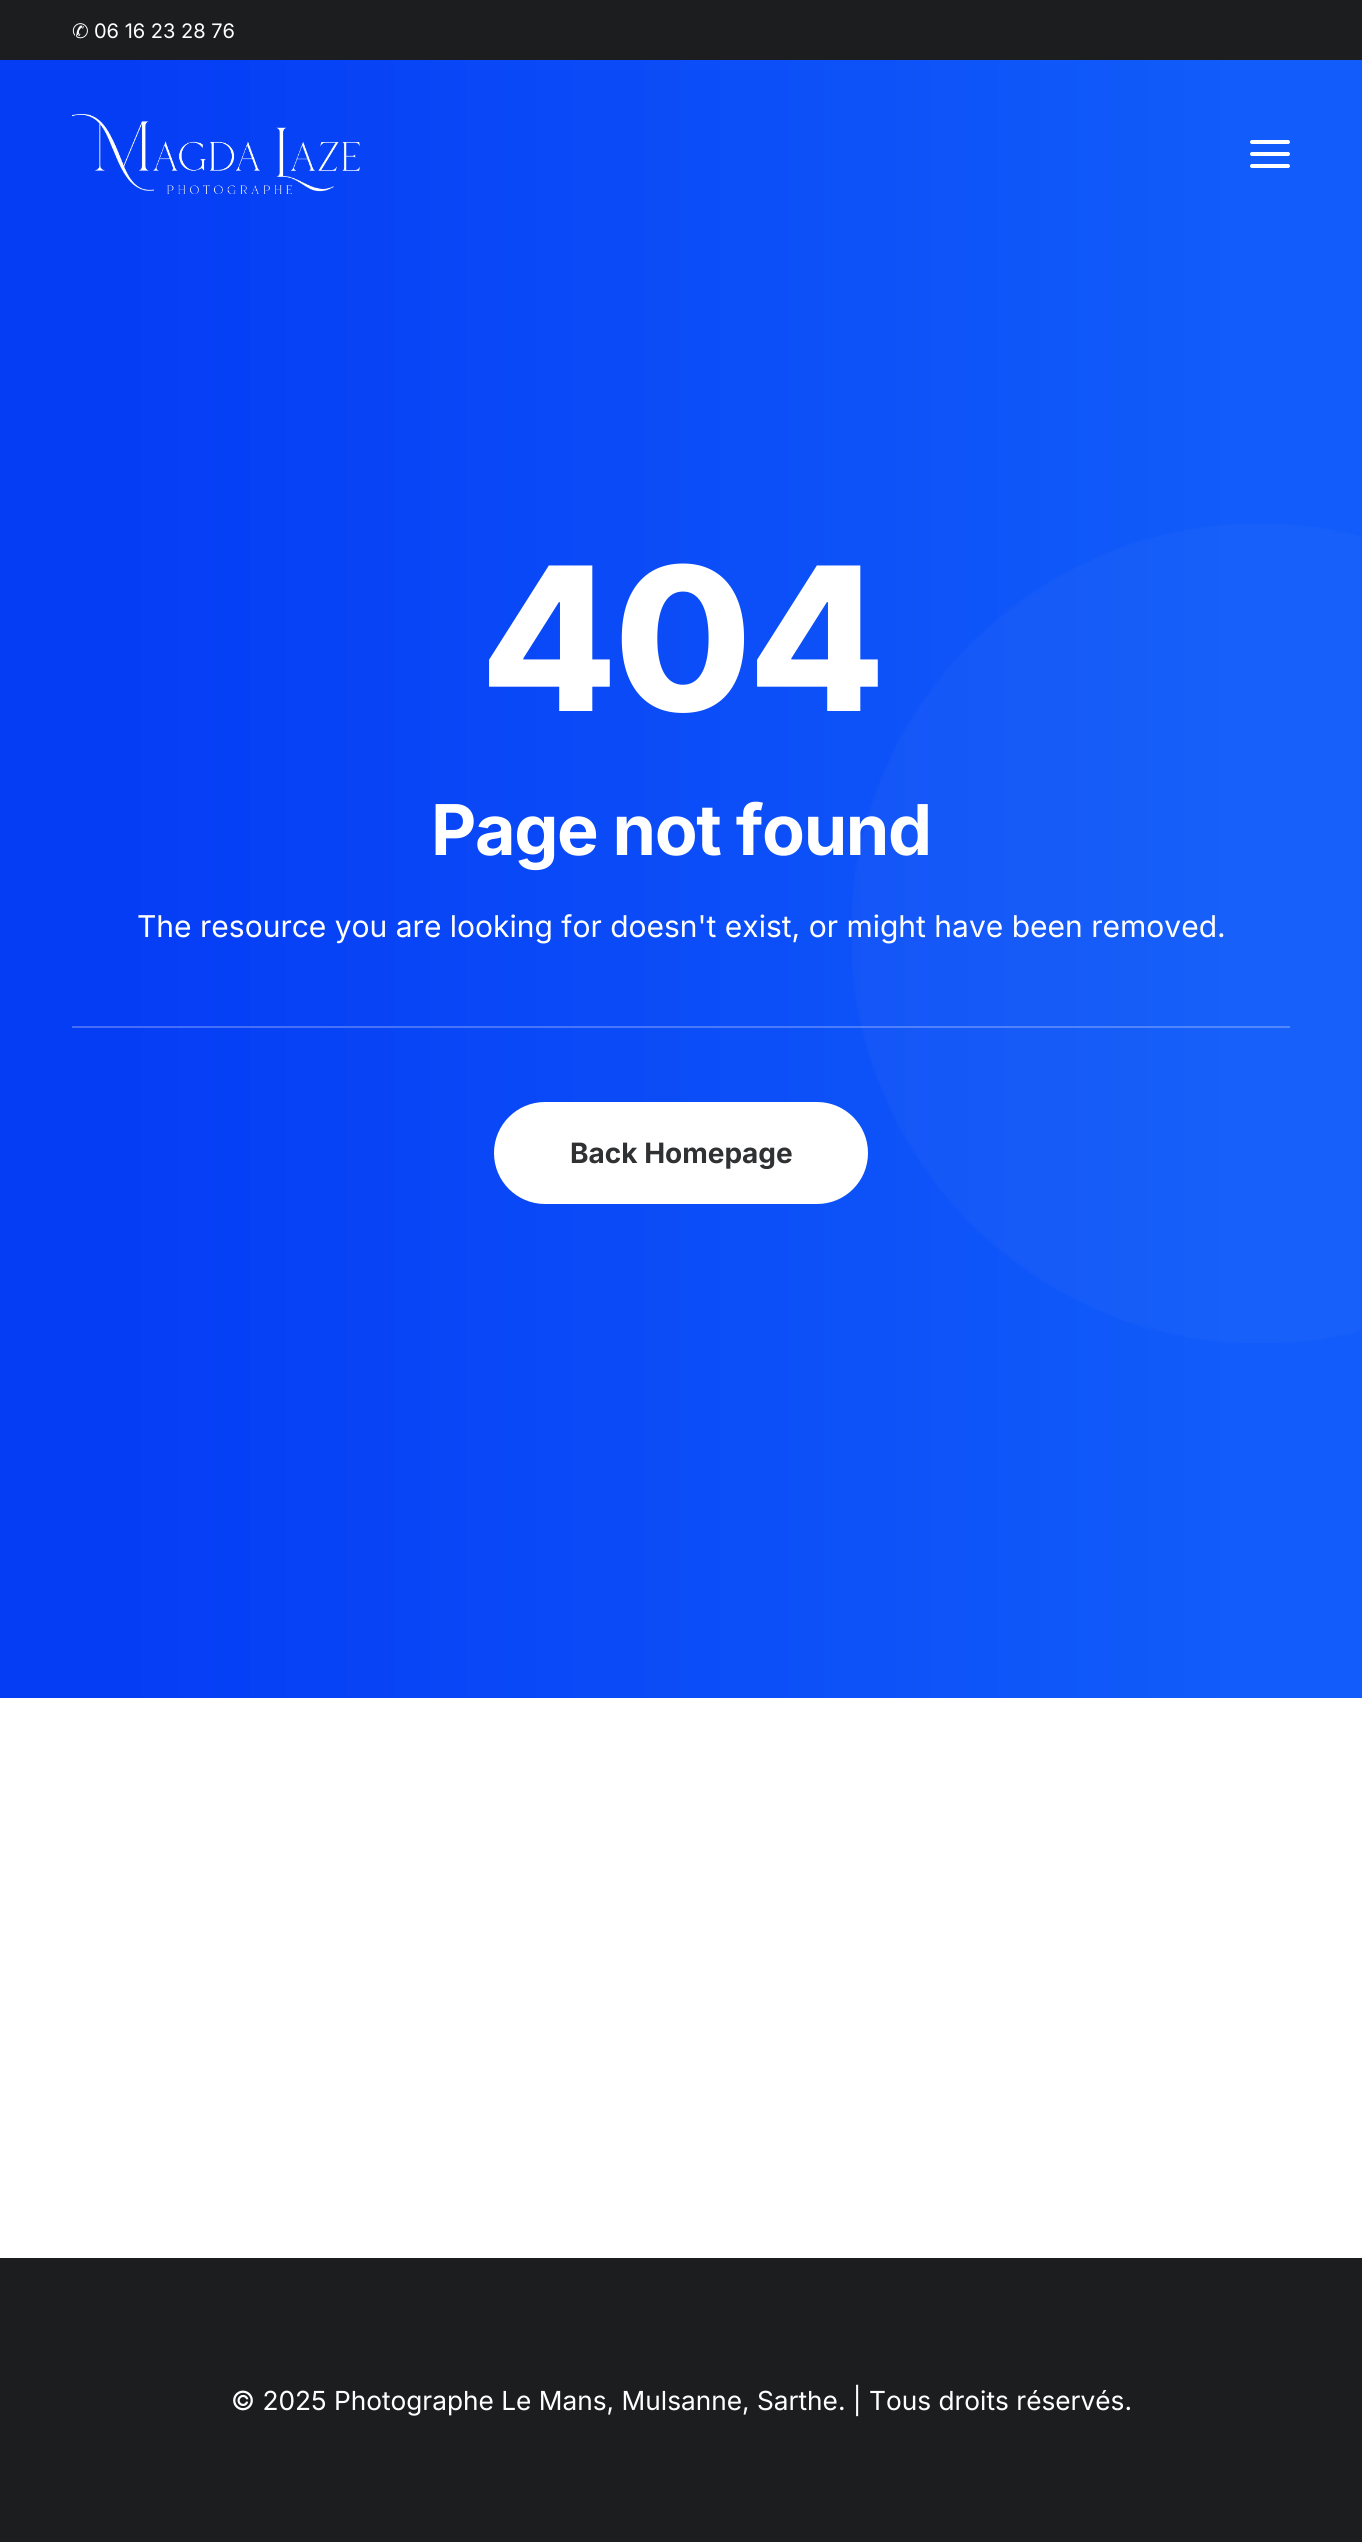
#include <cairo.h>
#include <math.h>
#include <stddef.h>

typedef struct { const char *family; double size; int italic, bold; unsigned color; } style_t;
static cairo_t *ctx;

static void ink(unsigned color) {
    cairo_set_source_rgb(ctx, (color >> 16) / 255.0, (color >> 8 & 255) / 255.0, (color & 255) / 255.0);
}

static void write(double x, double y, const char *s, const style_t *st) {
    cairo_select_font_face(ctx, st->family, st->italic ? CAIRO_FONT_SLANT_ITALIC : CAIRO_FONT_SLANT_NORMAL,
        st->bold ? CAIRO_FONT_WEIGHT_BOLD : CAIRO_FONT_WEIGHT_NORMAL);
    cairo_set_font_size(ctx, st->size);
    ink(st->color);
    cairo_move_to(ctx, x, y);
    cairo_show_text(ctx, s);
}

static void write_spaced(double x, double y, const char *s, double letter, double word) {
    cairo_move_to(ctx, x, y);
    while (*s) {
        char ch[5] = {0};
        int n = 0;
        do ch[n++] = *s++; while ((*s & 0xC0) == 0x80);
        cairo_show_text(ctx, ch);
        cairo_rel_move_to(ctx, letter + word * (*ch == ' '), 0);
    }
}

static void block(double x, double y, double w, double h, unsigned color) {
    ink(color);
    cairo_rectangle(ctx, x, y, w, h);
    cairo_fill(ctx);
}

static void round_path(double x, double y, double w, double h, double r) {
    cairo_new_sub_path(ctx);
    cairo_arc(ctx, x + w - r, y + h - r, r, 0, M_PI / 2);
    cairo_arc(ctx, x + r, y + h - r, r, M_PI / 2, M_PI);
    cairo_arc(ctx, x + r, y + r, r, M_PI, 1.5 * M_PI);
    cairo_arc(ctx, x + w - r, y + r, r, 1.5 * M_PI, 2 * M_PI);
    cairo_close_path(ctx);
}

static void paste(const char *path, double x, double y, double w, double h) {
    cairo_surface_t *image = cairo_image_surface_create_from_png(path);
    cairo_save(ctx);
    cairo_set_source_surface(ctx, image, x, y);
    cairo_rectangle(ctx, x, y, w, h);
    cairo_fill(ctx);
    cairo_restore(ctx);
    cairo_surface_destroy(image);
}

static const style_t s1 = {"DejaVu Sans", 20, 0, 0, 0xffffff};
static const style_t s2 = {"Inter", 20, 0, 0, 0xffffff};
static const style_t s3 = {"Inter", 30, 0, 0, 0xffffff};
static const style_t s4 = {"Inter", 28, 0, 1, 0x303133};
static const style_t s5 = {"Inter", 26.25, 0, 0, 0xffffff};

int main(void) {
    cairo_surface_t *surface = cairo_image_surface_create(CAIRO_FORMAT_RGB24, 1362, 2542);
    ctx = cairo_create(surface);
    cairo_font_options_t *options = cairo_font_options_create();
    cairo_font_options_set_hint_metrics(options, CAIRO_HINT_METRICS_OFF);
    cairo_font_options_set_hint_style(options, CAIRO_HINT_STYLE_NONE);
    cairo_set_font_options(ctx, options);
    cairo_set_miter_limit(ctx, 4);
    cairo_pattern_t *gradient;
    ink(0xffffff);
    cairo_paint(ctx);
    block(0, 0, 1362, 60, 0x1b1d1f);
    write(72, 38, "✆", &s1);
    write(94, 38, "06 16 23 28 76", &s2);
    gradient = cairo_pattern_create_linear(1362, 879, 0, 879);
    cairo_pattern_add_color_stop_rgba(gradient, 0.09, 0.067, 0.361, 0.98, 1);
    cairo_pattern_add_color_stop_rgba(gradient, 0.91, 0.02, 0.239, 0.961, 1);
    cairo_set_source(ctx, gradient);
    cairo_pattern_destroy(gradient);
    cairo_rectangle(ctx, 0, 60, 1362, 1638);
    cairo_fill(ctx);
    paste("pic1.png", 72, 114, 288, 80);
    ink(0xffffff);
    round_path(1250, 152, 40, 4, 2);
    cairo_fill(ctx);
    round_path(1250, 140, 40, 4, 2);
    cairo_fill(ctx);
    round_path(1250, 164, 40, 4, 2);
    cairo_fill(ctx);
    paste("pic2.png", 852, 524, 509, 819);
    cairo_select_font_face(ctx, "Inter ExtraBold", CAIRO_FONT_SLANT_NORMAL, CAIRO_FONT_WEIGHT_NORMAL);
    cairo_set_font_size(ctx, 200);
    write_spaced(480, 711, "404", -4, 0);
    cairo_select_font_face(ctx, "Inter", CAIRO_FONT_SLANT_NORMAL, CAIRO_FONT_WEIGHT_BOLD);
    cairo_set_font_size(ctx, 70);
    write_spaced(431, 855, "Page not found", -1.4, 0);
    write(137, 937, "The resource you are looking for doesn't exist, or might have been removed.", &s3);
    cairo_set_source_rgba(ctx, 1, 1, 1, 0.25);
    cairo_rectangle(ctx, 72, 1026, 1218, 2);
    cairo_fill(ctx);
    ink(0xffffff);
    round_path(496, 1104, 370, 98, 49);
    cairo_fill_preserve(ctx);
    cairo_set_line_width(ctx, 4);
    cairo_stroke(ctx);
    write(570, 1163, "Back Homepage", &s4);
    block(0, 2258, 1362, 284, 0x1b1d1f);
    write(231, 2410, "© 2025 Photographe Le Mans, Mulsanne, Sarthe. | Tous droits réservés.", &s5);
    cairo_surface_write_to_png(surface, "screenshot.png");
    cairo_font_options_destroy(options);
    cairo_destroy(ctx);
    cairo_surface_destroy(surface);
    return 0;
}
